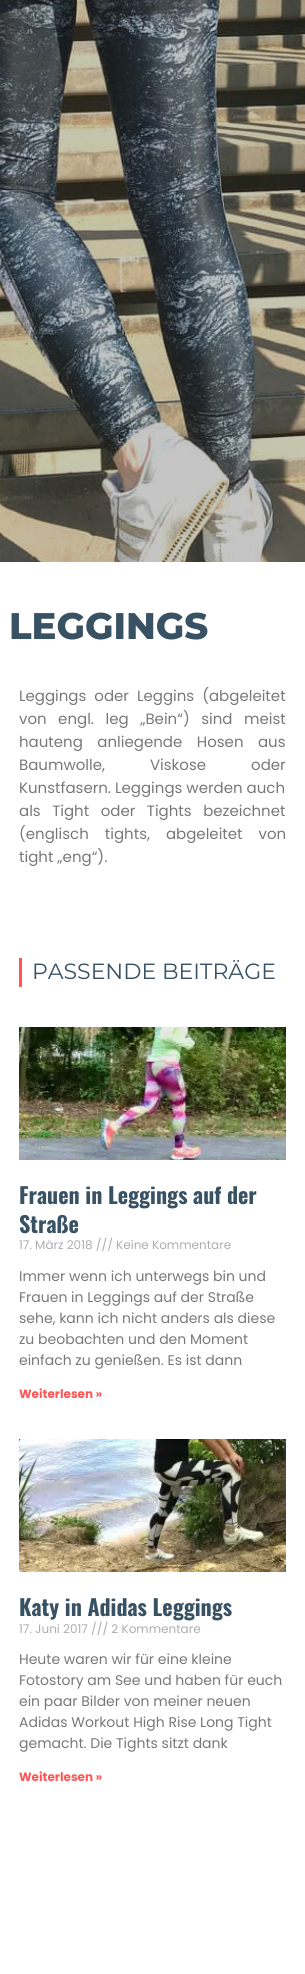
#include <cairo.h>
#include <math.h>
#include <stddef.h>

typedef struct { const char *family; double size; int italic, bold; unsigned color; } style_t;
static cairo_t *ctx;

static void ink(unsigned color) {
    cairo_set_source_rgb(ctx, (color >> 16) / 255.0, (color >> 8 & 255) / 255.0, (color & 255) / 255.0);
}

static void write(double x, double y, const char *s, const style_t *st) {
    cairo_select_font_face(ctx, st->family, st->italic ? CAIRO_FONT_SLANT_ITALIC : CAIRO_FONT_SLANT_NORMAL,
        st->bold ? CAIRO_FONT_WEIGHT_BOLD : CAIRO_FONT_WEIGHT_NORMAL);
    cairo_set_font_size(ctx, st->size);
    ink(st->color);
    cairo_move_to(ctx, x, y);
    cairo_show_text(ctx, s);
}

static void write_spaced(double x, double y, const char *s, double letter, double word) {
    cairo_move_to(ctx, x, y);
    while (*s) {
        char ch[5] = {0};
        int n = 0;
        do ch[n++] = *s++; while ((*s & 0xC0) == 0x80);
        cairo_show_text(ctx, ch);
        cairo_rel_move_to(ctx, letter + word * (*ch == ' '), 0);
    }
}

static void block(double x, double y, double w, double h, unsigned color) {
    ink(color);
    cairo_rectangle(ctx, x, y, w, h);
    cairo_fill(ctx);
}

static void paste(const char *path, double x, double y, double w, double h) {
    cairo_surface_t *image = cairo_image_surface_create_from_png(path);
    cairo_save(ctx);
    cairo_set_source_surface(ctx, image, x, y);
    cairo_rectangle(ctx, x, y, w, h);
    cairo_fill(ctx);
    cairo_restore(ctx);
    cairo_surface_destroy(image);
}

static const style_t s1 = {"Montserrat ExtraBold", 37, 0, 0, 0x385163};
static const style_t s2 = {"Poppins", 15, 0, 0, 0x787878};
static const style_t s3 = {"Montserrat", 22, 0, 0, 0x385163};
static const style_t s4 = {"Oswald", 22, 0, 1, 0x385163};
static const style_t s5 = {"Poppins", 12, 0, 0, 0xadadad};
static const style_t s6 = {"Poppins", 14, 0, 0, 0x787878};
static const style_t s7 = {"Poppins", 12, 0, 1, 0xff5555};

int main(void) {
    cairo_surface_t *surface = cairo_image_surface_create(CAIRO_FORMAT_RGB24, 305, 1974);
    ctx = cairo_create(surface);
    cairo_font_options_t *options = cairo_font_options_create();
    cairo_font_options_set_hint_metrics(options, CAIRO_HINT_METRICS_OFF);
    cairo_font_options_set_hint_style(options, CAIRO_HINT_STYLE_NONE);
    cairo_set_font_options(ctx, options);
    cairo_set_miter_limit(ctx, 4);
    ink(0xffffff);
    cairo_paint(ctx);
    paste("pic1.png", 0, 0, 305, 562);
    write(9, 639, "LEGGINGS", &s1);
    cairo_select_font_face(ctx, "Poppins", CAIRO_FONT_SLANT_NORMAL, CAIRO_FONT_WEIGHT_NORMAL);
    cairo_set_font_size(ctx, 15);
    ink(0x787878);
    write_spaced(19, 701, "Leggings oder Leggins (abgeleitet", 0, 4);
    write_spaced(19, 724, "von engl. leg „Bein“) sind meist", 0, 7.5);
    write_spaced(19, 747, "hauteng anliegende Hosen aus", 0, 10.5);
    write_spaced(19, 770, "Baumwolle, Viskose oder", 0, 41);
    write(19, 793, "Kunstfasern. Leggings werden auch", &s2);
    write_spaced(19, 816, "als Tight oder Tights bezeichnet", 0, 7.5);
    write_spaced(19, 839, "(englisch tights, abgeleitet von", 0, 12);
    write(19, 862, "tight „eng“).", &s2);
    block(19, 958, 3, 29, 0xff5555);
    write(32, 979, "PASSENDE BEITRÄGE", &s3);
    paste("pic2.png", 19, 1027, 267, 133);
    write(19, 1204, "Frauen in Leggings auf der", &s4);
    write(19, 1233, "Straße", &s4);
    write(19, 1249, "17. März 2018 /// Keine Kommentare", &s5);
    write(19, 1281, "Immer wenn ich unterwegs bin und", &s6);
    write(19, 1302, "Frauen in Leggings auf der Straße", &s6);
    write(19, 1323, "sehe, kann ich nicht anders als diese", &s6);
    write(19, 1344, "zu beobachten und den Moment", &s6);
    write(19, 1365, "einfach zu genießen. Es ist dann", &s6);
    write(19, 1398, "Weiterlesen »", &s7);
    paste("pic3.png", 19, 1439, 267, 133);
    write(19, 1616, "Katy in Adidas Leggings", &s4);
    write(19, 1633, "17. Juni 2017 /// 2 Kommentare", &s5);
    write(19, 1664, "Heute waren wir für eine kleine", &s6);
    write(19, 1685, "Fotostory am See und haben für euch", &s6);
    write(19, 1706, "ein paar Bilder von meiner neuen", &s6);
    write(19, 1727, "Adidas Workout High Rise Long Tight", &s6);
    write(19, 1748, "gemacht. Die Tights sitzt dank", &s6);
    write(19, 1781, "Weiterlesen »", &s7);
    cairo_surface_write_to_png(surface, "screenshot.png");
    cairo_font_options_destroy(options);
    cairo_destroy(ctx);
    cairo_surface_destroy(surface);
    return 0;
}
